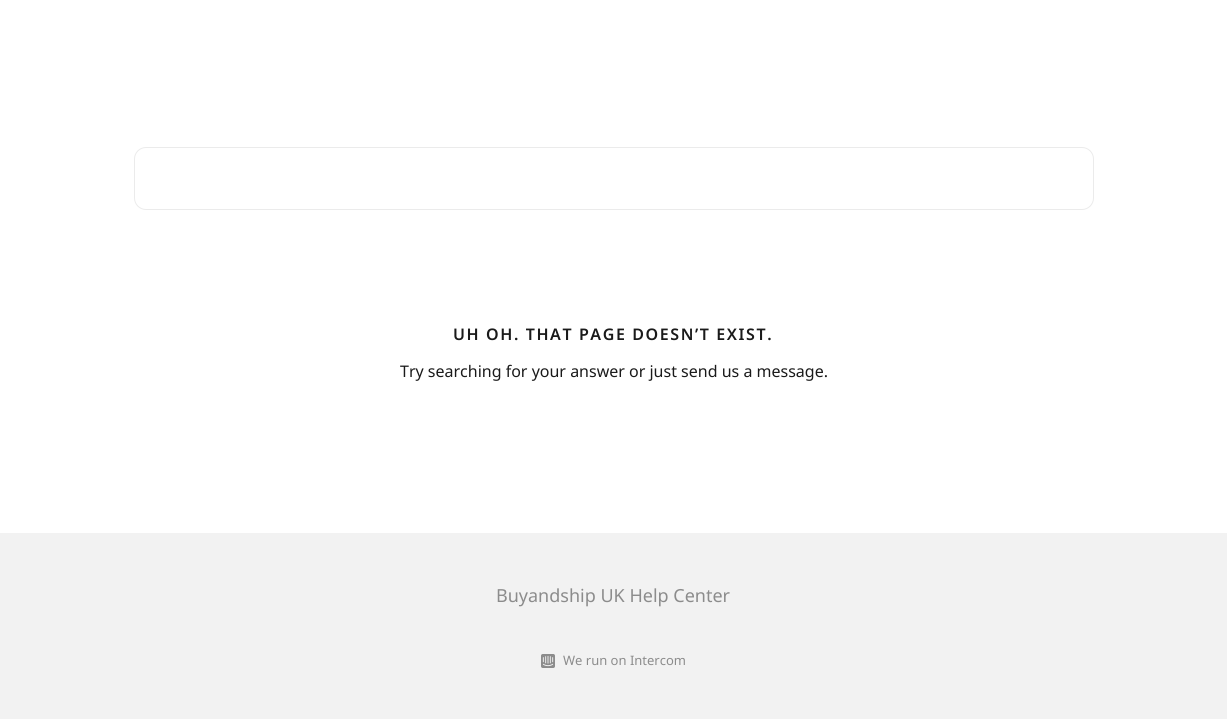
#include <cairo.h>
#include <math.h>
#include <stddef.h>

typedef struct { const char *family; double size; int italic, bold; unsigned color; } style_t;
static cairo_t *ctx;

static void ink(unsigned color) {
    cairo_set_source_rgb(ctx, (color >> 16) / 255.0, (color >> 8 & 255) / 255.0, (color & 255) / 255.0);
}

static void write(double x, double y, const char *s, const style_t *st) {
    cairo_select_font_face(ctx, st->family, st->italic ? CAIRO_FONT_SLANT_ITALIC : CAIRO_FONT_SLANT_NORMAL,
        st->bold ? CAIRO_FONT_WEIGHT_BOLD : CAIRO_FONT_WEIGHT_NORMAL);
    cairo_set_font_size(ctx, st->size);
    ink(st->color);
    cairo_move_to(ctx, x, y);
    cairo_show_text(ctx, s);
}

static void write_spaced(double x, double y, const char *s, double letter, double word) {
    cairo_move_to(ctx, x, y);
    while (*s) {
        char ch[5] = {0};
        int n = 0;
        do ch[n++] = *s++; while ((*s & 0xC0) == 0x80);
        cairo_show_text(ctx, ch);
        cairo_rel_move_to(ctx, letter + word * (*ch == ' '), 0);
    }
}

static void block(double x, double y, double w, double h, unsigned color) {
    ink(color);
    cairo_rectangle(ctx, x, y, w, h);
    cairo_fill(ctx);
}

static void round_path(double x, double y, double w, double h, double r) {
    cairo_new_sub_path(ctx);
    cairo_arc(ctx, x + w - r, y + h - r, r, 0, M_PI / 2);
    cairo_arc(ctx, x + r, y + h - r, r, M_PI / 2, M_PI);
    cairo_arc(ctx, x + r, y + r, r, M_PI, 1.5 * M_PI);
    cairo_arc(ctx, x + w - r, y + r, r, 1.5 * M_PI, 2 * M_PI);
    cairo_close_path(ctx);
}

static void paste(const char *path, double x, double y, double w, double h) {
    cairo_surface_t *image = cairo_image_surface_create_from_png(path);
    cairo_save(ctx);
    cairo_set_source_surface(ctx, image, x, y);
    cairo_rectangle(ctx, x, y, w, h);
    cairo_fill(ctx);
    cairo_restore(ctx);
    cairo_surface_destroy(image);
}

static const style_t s1 = {"Noto Sans", 16, 0, 0, 0x1a1a1a};
static const style_t s2 = {"Noto Sans", 18, 0, 0, 0x8c8c8c};
static const style_t s3 = {"Noto Sans", 13, 0, 0, 0x8c8c8c};

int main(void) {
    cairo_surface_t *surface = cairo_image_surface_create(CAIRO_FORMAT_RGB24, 1227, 719);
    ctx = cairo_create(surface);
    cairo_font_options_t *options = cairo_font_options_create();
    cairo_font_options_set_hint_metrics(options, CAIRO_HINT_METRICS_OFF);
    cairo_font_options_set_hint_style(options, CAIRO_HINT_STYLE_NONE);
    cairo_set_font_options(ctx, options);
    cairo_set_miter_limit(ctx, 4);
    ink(0xffffff);
    cairo_paint(ctx);
    round_path(134.5, 147.5, 959, 62, 11.5);
    cairo_set_source_rgba(ctx, 0, 0, 0, 0.08);
    cairo_set_line_width(ctx, 1);
    cairo_stroke(ctx);
    cairo_select_font_face(ctx, "Noto Sans SemiBold", CAIRO_FONT_SLANT_NORMAL, CAIRO_FONT_WEIGHT_NORMAL);
    cairo_set_font_size(ctx, 16);
    ink(0x1a1a1a);
    write_spaced(453, 340, "UH OH. THAT PAGE DOESN’T EXIST.", 1.6, 0);
    write(400, 377, "Try searching for your answer or just send us a message.", &s1);
    block(0, 533, 1227, 186, 0xf2f2f2);
    write(496, 602, "Buyandship UK Help Center", &s2);
    paste("pic1.png", 541, 654, 14, 14);
    write(563, 665, "We run on Intercom", &s3);
    cairo_surface_write_to_png(surface, "screenshot.png");
    cairo_font_options_destroy(options);
    cairo_destroy(ctx);
    cairo_surface_destroy(surface);
    return 0;
}
